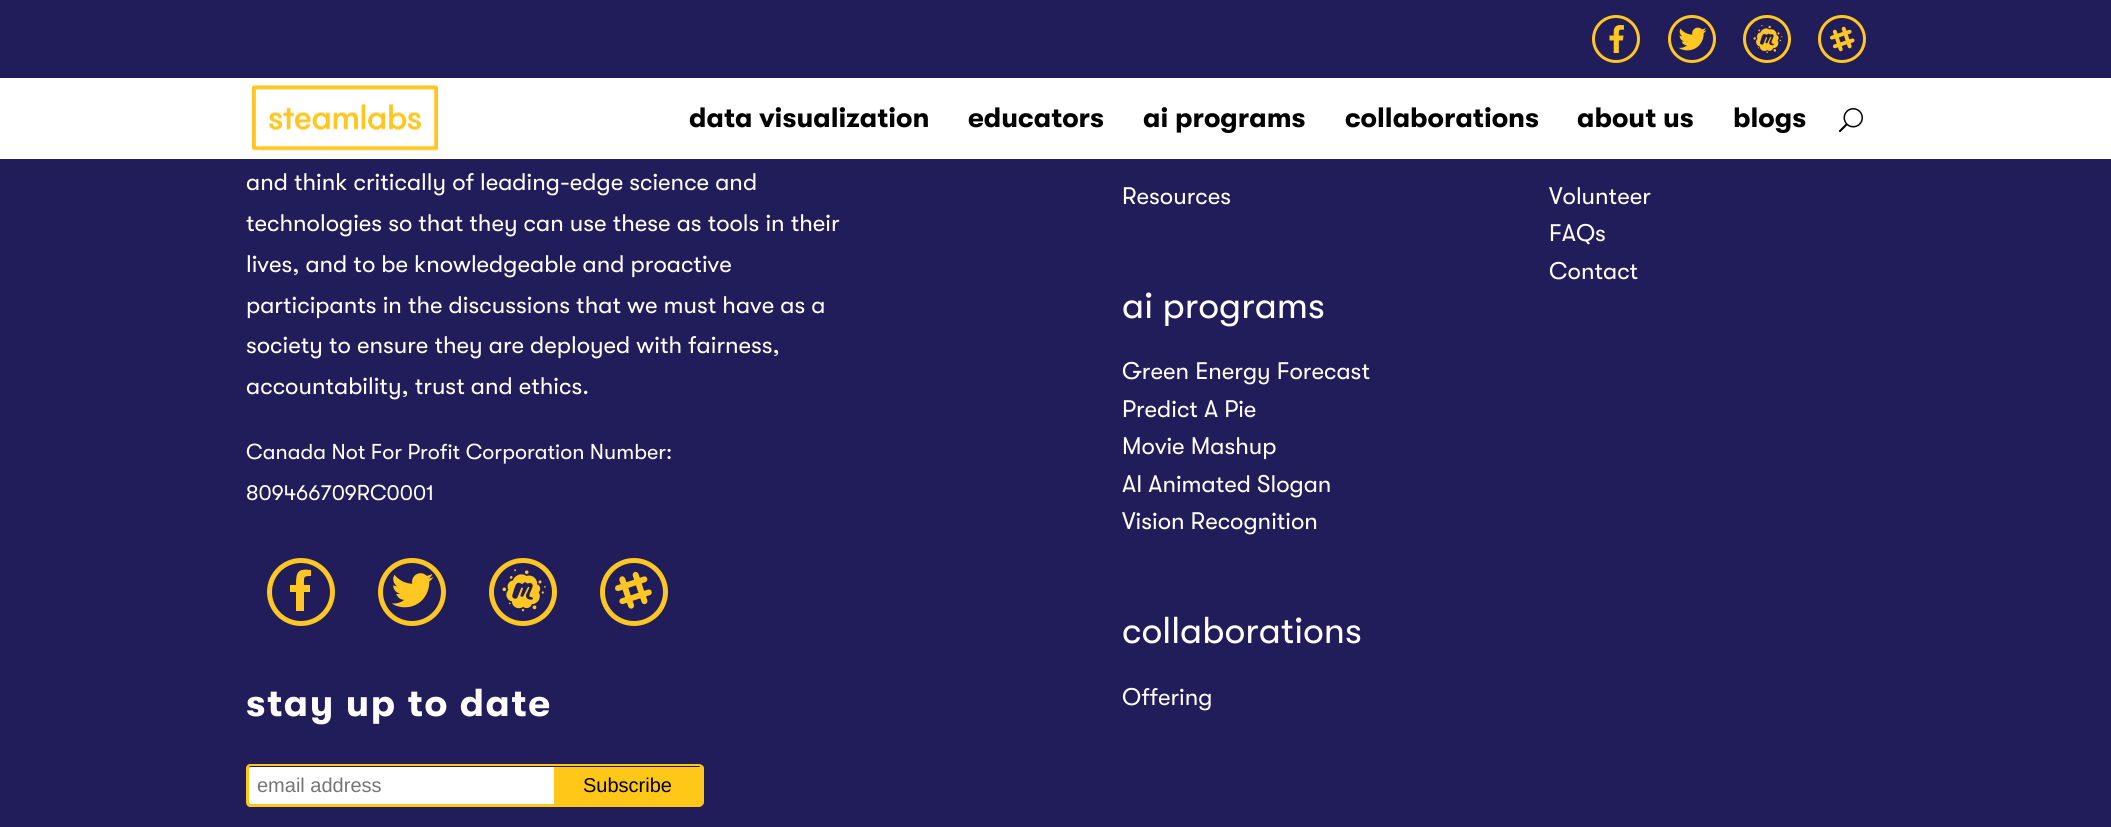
#include <cairo.h>
#include <math.h>
#include <stddef.h>

typedef struct { const char *family; double size; int italic, bold; unsigned color; } style_t;
static cairo_t *ctx;

static void ink(unsigned color) {
    cairo_set_source_rgb(ctx, (color >> 16) / 255.0, (color >> 8 & 255) / 255.0, (color & 255) / 255.0);
}

static void write(double x, double y, const char *s, const style_t *st) {
    cairo_select_font_face(ctx, st->family, st->italic ? CAIRO_FONT_SLANT_ITALIC : CAIRO_FONT_SLANT_NORMAL,
        st->bold ? CAIRO_FONT_WEIGHT_BOLD : CAIRO_FONT_WEIGHT_NORMAL);
    cairo_set_font_size(ctx, st->size);
    ink(st->color);
    cairo_move_to(ctx, x, y);
    cairo_show_text(ctx, s);
}

static void write_spaced(double x, double y, const char *s, double letter, double word) {
    cairo_move_to(ctx, x, y);
    while (*s) {
        char ch[5] = {0};
        int n = 0;
        do ch[n++] = *s++; while ((*s & 0xC0) == 0x80);
        cairo_show_text(ctx, ch);
        cairo_rel_move_to(ctx, letter + word * (*ch == ' '), 0);
    }
}

static void block(double x, double y, double w, double h, unsigned color) {
    ink(color);
    cairo_rectangle(ctx, x, y, w, h);
    cairo_fill(ctx);
}

static void paste(const char *path, double x, double y, double w, double h) {
    cairo_surface_t *image = cairo_image_surface_create_from_png(path);
    cairo_save(ctx);
    cairo_set_source_surface(ctx, image, x, y);
    cairo_rectangle(ctx, x, y, w, h);
    cairo_fill(ctx);
    cairo_restore(ctx);
    cairo_surface_destroy(image);
}

static const style_t s1 = {"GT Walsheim", 28, 0, 1, 0x000000};
static const style_t s2 = {"GT Walsheim", 24, 0, 0, 0xffffff};
static const style_t s3 = {"GT Walsheim", 21.6, 0, 0, 0xffffff};
static const style_t s4 = {"Liberation Sans", 20, 0, 0, 0x757575};
static const style_t s5 = {"Liberation Sans", 20, 0, 0, 0x000000};
static const style_t s6 = {"GT Walsheim", 37.5, 0, 0, 0xffffff};

int main(void) {
    cairo_surface_t *surface = cairo_image_surface_create(CAIRO_FORMAT_RGB24, 2111, 827);
    ctx = cairo_create(surface);
    cairo_font_options_t *options = cairo_font_options_create();
    cairo_font_options_set_hint_metrics(options, CAIRO_HINT_METRICS_OFF);
    cairo_font_options_set_hint_style(options, CAIRO_HINT_STYLE_NONE);
    cairo_set_font_options(ctx, options);
    cairo_set_miter_limit(ctx, 4);
    ink(0x211c5a);
    cairo_paint(ctx);
    cairo_arc(ctx, 1616, 39, 22.5, 0, 2 * M_PI);
    ink(0xffc721);
    cairo_set_line_width(ctx, 3);
    cairo_stroke(ctx);
    paste("pic1.png", 1609, 25, 15, 28);
    cairo_arc(ctx, 1692, 39, 22.5, 0, 2 * M_PI);
    cairo_stroke(ctx);
    paste("pic2.png", 1678, 27, 29, 24);
    cairo_arc(ctx, 1767, 39, 22.5, 0, 2 * M_PI);
    cairo_stroke(ctx);
    paste("pic3.png", 1753, 25, 30, 28);
    cairo_arc(ctx, 1842, 39, 22.5, 0, 2 * M_PI);
    cairo_stroke(ctx);
    paste("pic4.png", 1830, 26, 25, 26);
    block(0, 78, 2111, 81, 0xffffff);
    paste("pic5.png", 252, 85, 186, 66);
    write(689, 127, "data visualization", &s1);
    write(968, 127, "educators", &s1);
    write(1143, 127, "ai programs", &s1);
    write(1345, 127, "collaborations", &s1);
    write(1577, 127, "about us", &s1);
    write(1733, 127, "blogs", &s1);
    paste("pic6.png", 1838, 108, 25, 25);
    write(246, 190, "and think critically of leading-edge science and", &s2);
    write(246, 231, "technologies so that they can use these as tools in their", &s2);
    write(246, 272, "lives, and to be knowledgeable and proactive", &s2);
    write(246, 313, "participants in the discussions that we must have as a", &s2);
    write(246, 353, "society to ensure they are deployed with fairness,", &s2);
    write(246, 394, "accountability, trust and ethics.", &s2);
    write(246, 459, "Canada Not For Profit Corporation Number:", &s3);
    write(246, 500, "809466709RC0001", &s3);
    cairo_new_path(ctx);
    cairo_arc(ctx, 301, 592, 31.5, 0, 2 * M_PI);
    ink(0xffc721);
    cairo_set_line_width(ctx, 5);
    cairo_stroke(ctx);
    cairo_new_path(ctx);
    cairo_move_to(ctx, 296, 611);
    cairo_line_to(ctx, 296, 592);
    cairo_line_to(ctx, 290, 592);
    cairo_line_to(ctx, 290, 585);
    cairo_line_to(ctx, 296, 585);
    cairo_curve_to(ctx, 296, 573, 297, 568, 311, 570);
    cairo_line_to(ctx, 311, 576);
    cairo_curve_to(ctx, 303, 576, 304, 577, 304, 585);
    cairo_line_to(ctx, 310, 585);
    cairo_line_to(ctx, 310, 592);
    cairo_line_to(ctx, 304, 592);
    cairo_line_to(ctx, 304, 611);
    cairo_close_path(ctx);
    cairo_fill(ctx);
    cairo_arc(ctx, 412, 592, 31.5, 0, 2 * M_PI);
    cairo_stroke(ctx);
    paste("pic7.png", 391, 573, 43, 35);
    cairo_arc(ctx, 523, 592, 31.5, 0, 2 * M_PI);
    cairo_stroke(ctx);
    paste("pic8.png", 502, 569, 44, 43);
    cairo_arc(ctx, 634, 592, 31.5, 0, 2 * M_PI);
    cairo_stroke(ctx);
    paste("pic9.png", 615, 571, 37, 38);
    cairo_select_font_face(ctx, "GT Walsheim", CAIRO_FONT_SLANT_NORMAL, CAIRO_FONT_WEIGHT_BOLD);
    cairo_set_font_size(ctx, 39);
    ink(0xffffff);
    write_spaced(246, 716, "stay up to date", 1.5, 0);
    cairo_new_path(ctx);
    cairo_move_to(ctx, 250.5, 767);
    cairo_line_to(ctx, 554, 767);
    cairo_line_to(ctx, 554, 804);
    cairo_line_to(ctx, 250.5, 804);
    cairo_curve_to(ctx, 249.5, 804, 249, 803.5, 249, 802.5);
    cairo_line_to(ctx, 249, 768.5);
    cairo_curve_to(ctx, 249, 767.5, 249.5, 767, 250.5, 767);
    cairo_close_path(ctx);
    cairo_fill(ctx);
    ink(0xffc718);
    cairo_set_fill_rule(ctx, CAIRO_FILL_RULE_EVEN_ODD);
    cairo_new_path(ctx);
    cairo_move_to(ctx, 250, 764);
    cairo_line_to(ctx, 554, 764);
    cairo_line_to(ctx, 554, 807);
    cairo_line_to(ctx, 250, 807);
    cairo_curve_to(ctx, 248, 807, 246, 805, 246, 802);
    cairo_line_to(ctx, 246, 768);
    cairo_curve_to(ctx, 246, 766, 248, 764, 250, 764);
    cairo_close_path(ctx);
    cairo_move_to(ctx, 250, 766);
    cairo_line_to(ctx, 554, 766);
    cairo_line_to(ctx, 554, 804);
    cairo_line_to(ctx, 250, 804);
    cairo_curve_to(ctx, 250, 804, 249, 803, 249, 802);
    cairo_line_to(ctx, 249, 768);
    cairo_curve_to(ctx, 249, 767, 250, 766, 250, 766);
    cairo_close_path(ctx);
    cairo_fill(ctx);
    write(257, 792, "email address", &s4);
    block(554, 767, 146, 37, 0xffc718);
    cairo_new_path(ctx);
    cairo_move_to(ctx, 554, 764);
    cairo_line_to(ctx, 699, 764);
    cairo_curve_to(ctx, 701, 764, 704, 766, 704, 768);
    cairo_line_to(ctx, 704, 802);
    cairo_curve_to(ctx, 704, 805, 701, 807, 699, 807);
    cairo_line_to(ctx, 554, 807);
    cairo_close_path(ctx);
    cairo_move_to(ctx, 554, 766);
    cairo_line_to(ctx, 699, 766);
    cairo_curve_to(ctx, 700, 766, 700, 767, 700, 768);
    cairo_line_to(ctx, 700, 802);
    cairo_curve_to(ctx, 700, 803, 700, 804, 699, 804);
    cairo_line_to(ctx, 554, 804);
    cairo_close_path(ctx);
    cairo_fill(ctx);
    write(583, 792, "Subscribe", &s5);
    write(1122, 204, "Resources", &s2);
    write(1122, 318, "ai programs", &s6);
    write(1122, 379, "Green Energy Forecast", &s2);
    write(1122, 417, "Predict A Pie", &s2);
    write(1122, 454, "Movie Mashup", &s2);
    write(1122, 492, "AI Animated Slogan", &s2);
    write(1122, 529, "Vision Recognition", &s2);
    write(1122, 643, "collaborations", &s6);
    write(1122, 705, "Offering", &s2);
    write(1549, 204, "Volunteer", &s2);
    write(1549, 241, "FAQs", &s2);
    write(1549, 279, "Contact", &s2);
    cairo_surface_write_to_png(surface, "screenshot.png");
    cairo_font_options_destroy(options);
    cairo_destroy(ctx);
    cairo_surface_destroy(surface);
    return 0;
}
